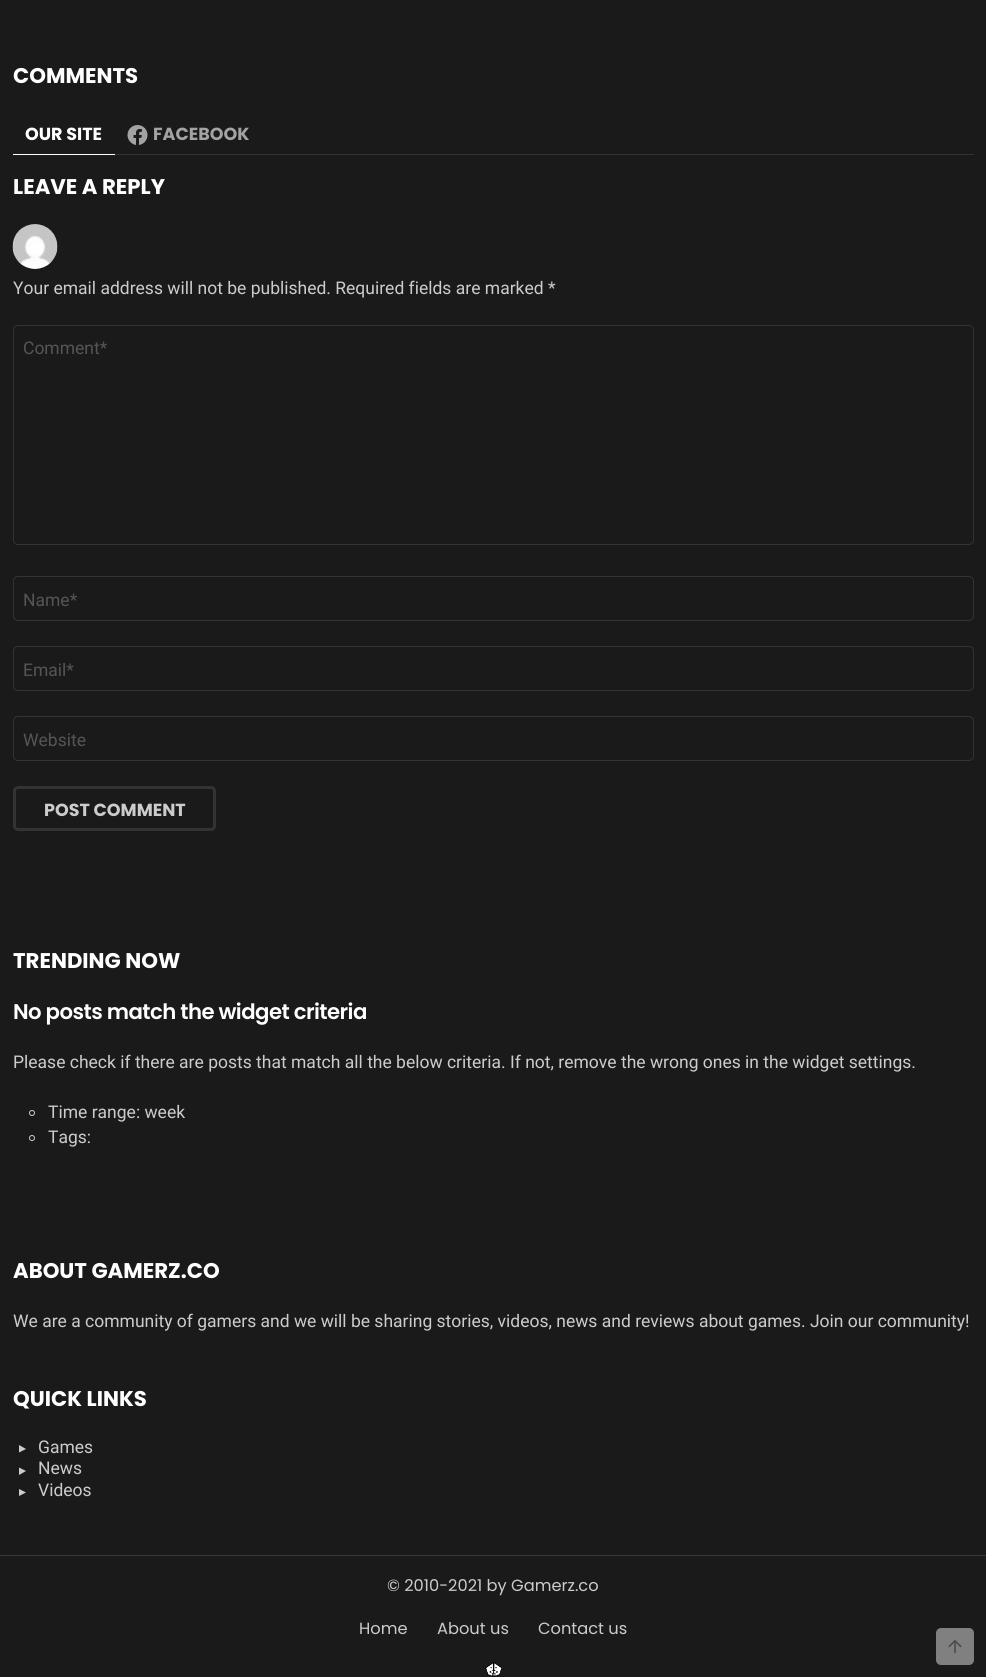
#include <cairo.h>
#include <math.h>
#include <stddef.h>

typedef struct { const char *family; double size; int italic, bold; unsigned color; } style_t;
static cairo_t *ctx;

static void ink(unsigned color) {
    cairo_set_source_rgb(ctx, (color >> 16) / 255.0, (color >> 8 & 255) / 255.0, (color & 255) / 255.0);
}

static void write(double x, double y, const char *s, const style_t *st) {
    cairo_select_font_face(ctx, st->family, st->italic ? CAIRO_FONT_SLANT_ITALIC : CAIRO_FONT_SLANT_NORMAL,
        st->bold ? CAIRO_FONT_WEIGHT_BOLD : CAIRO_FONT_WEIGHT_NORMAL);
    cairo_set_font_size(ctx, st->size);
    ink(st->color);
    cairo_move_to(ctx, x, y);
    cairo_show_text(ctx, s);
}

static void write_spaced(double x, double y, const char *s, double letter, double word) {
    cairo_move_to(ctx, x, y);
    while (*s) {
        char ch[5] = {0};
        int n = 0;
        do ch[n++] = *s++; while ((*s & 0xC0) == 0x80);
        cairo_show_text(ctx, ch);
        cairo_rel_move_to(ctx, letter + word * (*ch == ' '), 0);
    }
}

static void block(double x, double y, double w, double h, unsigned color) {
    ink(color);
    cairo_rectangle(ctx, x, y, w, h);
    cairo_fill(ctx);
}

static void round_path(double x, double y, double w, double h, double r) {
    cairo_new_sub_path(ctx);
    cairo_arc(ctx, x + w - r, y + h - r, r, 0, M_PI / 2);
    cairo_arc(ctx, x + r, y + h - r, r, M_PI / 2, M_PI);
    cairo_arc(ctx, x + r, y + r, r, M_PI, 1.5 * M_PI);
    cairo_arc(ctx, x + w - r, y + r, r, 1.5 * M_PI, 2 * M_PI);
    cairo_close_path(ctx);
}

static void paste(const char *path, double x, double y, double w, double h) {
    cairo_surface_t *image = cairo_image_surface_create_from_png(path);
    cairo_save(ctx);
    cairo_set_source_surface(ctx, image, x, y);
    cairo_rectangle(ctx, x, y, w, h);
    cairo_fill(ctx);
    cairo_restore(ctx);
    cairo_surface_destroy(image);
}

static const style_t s1 = {"Poppins", 21.25, 0, 1, 0xffffff};
static const style_t s2 = {"Poppins", 17.5, 0, 1, 0xffffff};
static const style_t s3 = {"Poppins", 17.5, 0, 1, 0xa3a3a3};
static const style_t s4 = {"Roboto", 17.5, 0, 0, 0xcccccc};
static const style_t s5 = {"Roboto", 17.5, 0, 0, 0x555555};
static const style_t s6 = {"Poppins", 17.5, 0, 1, 0xcccccc};
static const style_t s7 = {"Poppins", 16.25, 0, 0, 0xcccccc};

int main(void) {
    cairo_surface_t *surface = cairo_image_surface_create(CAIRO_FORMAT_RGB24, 986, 1677);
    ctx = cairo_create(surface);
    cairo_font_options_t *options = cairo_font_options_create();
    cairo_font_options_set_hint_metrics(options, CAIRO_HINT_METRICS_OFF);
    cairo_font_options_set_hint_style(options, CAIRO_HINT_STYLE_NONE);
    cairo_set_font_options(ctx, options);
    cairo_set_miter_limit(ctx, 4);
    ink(0x1a1a1a);
    cairo_paint(ctx);
    write(13, 83, "COMMENTS", &s1);
    block(115, 154, 859, 1, 0x333333);
    block(13, 154, 102, 1, 0xffffff);
    write(25, 140, "OUR SITE", &s2);
    paste("pic1.png", 127, 125, 21, 20);
    write(153, 140, "FACEBOOK", &s3);
    write(13, 194, "LEAVE A REPLY", &s1);
    paste("pic2.png", 12, 224, 46, 45);
    write(13, 294, "Your email address will not be published. Required fields are marked *", &s4);
    round_path(13.5, 325.5, 960, 219, 4.5);
    ink(0x333333);
    cairo_set_line_width(ctx, 1);
    cairo_stroke(ctx);
    write(23, 354, "Comment*", &s5);
    round_path(13.5, 576.5, 960, 44, 4.5);
    ink(0x333333);
    cairo_stroke(ctx);
    write(23, 606, "Name*", &s5);
    round_path(13.5, 646.5, 960, 44, 4.5);
    ink(0x333333);
    cairo_stroke(ctx);
    write(23, 676, "Email*", &s5);
    round_path(13.5, 716.5, 960, 44, 4.5);
    ink(0x333333);
    cairo_stroke(ctx);
    write(23, 746, "Website", &s5);
    round_path(14.5, 787.5, 200, 42, 3.5);
    ink(0x333333);
    cairo_set_line_width(ctx, 3);
    cairo_stroke(ctx);
    write(44, 816, "POST COMMENT", &s6);
    write(13, 968, "TRENDING NOW", &s1);
    cairo_select_font_face(ctx, "Poppins SemiBold", CAIRO_FONT_SLANT_NORMAL, CAIRO_FONT_WEIGHT_NORMAL);
    write_spaced(13, 1019, "No posts match the widget criteria", -0.55, 0);
    write(13, 1068, "Please check if there are posts that match all the below criteria. If not, remove the wrong ones in the widget settings.", &s4);
    cairo_new_path(ctx);
    cairo_arc(ctx, 32, 1113, 2.5, 0, 2 * M_PI);
    cairo_set_line_width(ctx, 1);
    cairo_stroke(ctx);
    write(48, 1118, "Time range: week", &s4);
    cairo_new_path(ctx);
    cairo_arc(ctx, 32, 1138, 2.5, 0, 2 * M_PI);
    cairo_stroke(ctx);
    write(48, 1143, "Tags:", &s4);
    write(13, 1278, "ABOUT GAMERZ.CO", &s1);
    write(13, 1327, "We are a community of gamers and we will be sharing stories, videos, news and reviews about games. Join our community!", &s4);
    write(13, 1406, "QUICK LINKS", &s1);
    ink(0xcccccc);
    cairo_new_path(ctx);
    cairo_move_to(ctx, 26, 1449);
    cairo_line_to(ctx, 19, 1445);
    cairo_line_to(ctx, 19, 1452.5);
    cairo_close_path(ctx);
    cairo_fill(ctx);
    write(38, 1453, "Games", &s4);
    cairo_new_path(ctx);
    cairo_move_to(ctx, 26, 1471);
    cairo_line_to(ctx, 19, 1467.5);
    cairo_line_to(ctx, 19, 1475);
    cairo_close_path(ctx);
    cairo_fill(ctx);
    write(38, 1474, "News", &s4);
    cairo_new_path(ctx);
    cairo_move_to(ctx, 26, 1492.5);
    cairo_line_to(ctx, 19, 1489);
    cairo_line_to(ctx, 19, 1496);
    cairo_close_path(ctx);
    cairo_fill(ctx);
    write(38, 1496, "Videos", &s4);
    block(0, 1555, 986, 1, 0x383838);
    write(387, 1591, "© 2010-2021 by Gamerz.co", &s7);
    write(359, 1634, "Home", &s7);
    write(437, 1634, "About us", &s7);
    write(538, 1634, "Contact us", &s7);
    paste("pic3.png", 485, 1662, 17, 15);
    ink(0x808080);
    round_path(936, 1628, 38, 37, 5);
    cairo_fill(ctx);
    paste("pic4.png", 948, 1639, 14, 14);
    cairo_surface_write_to_png(surface, "screenshot.png");
    cairo_font_options_destroy(options);
    cairo_destroy(ctx);
    cairo_surface_destroy(surface);
    return 0;
}
